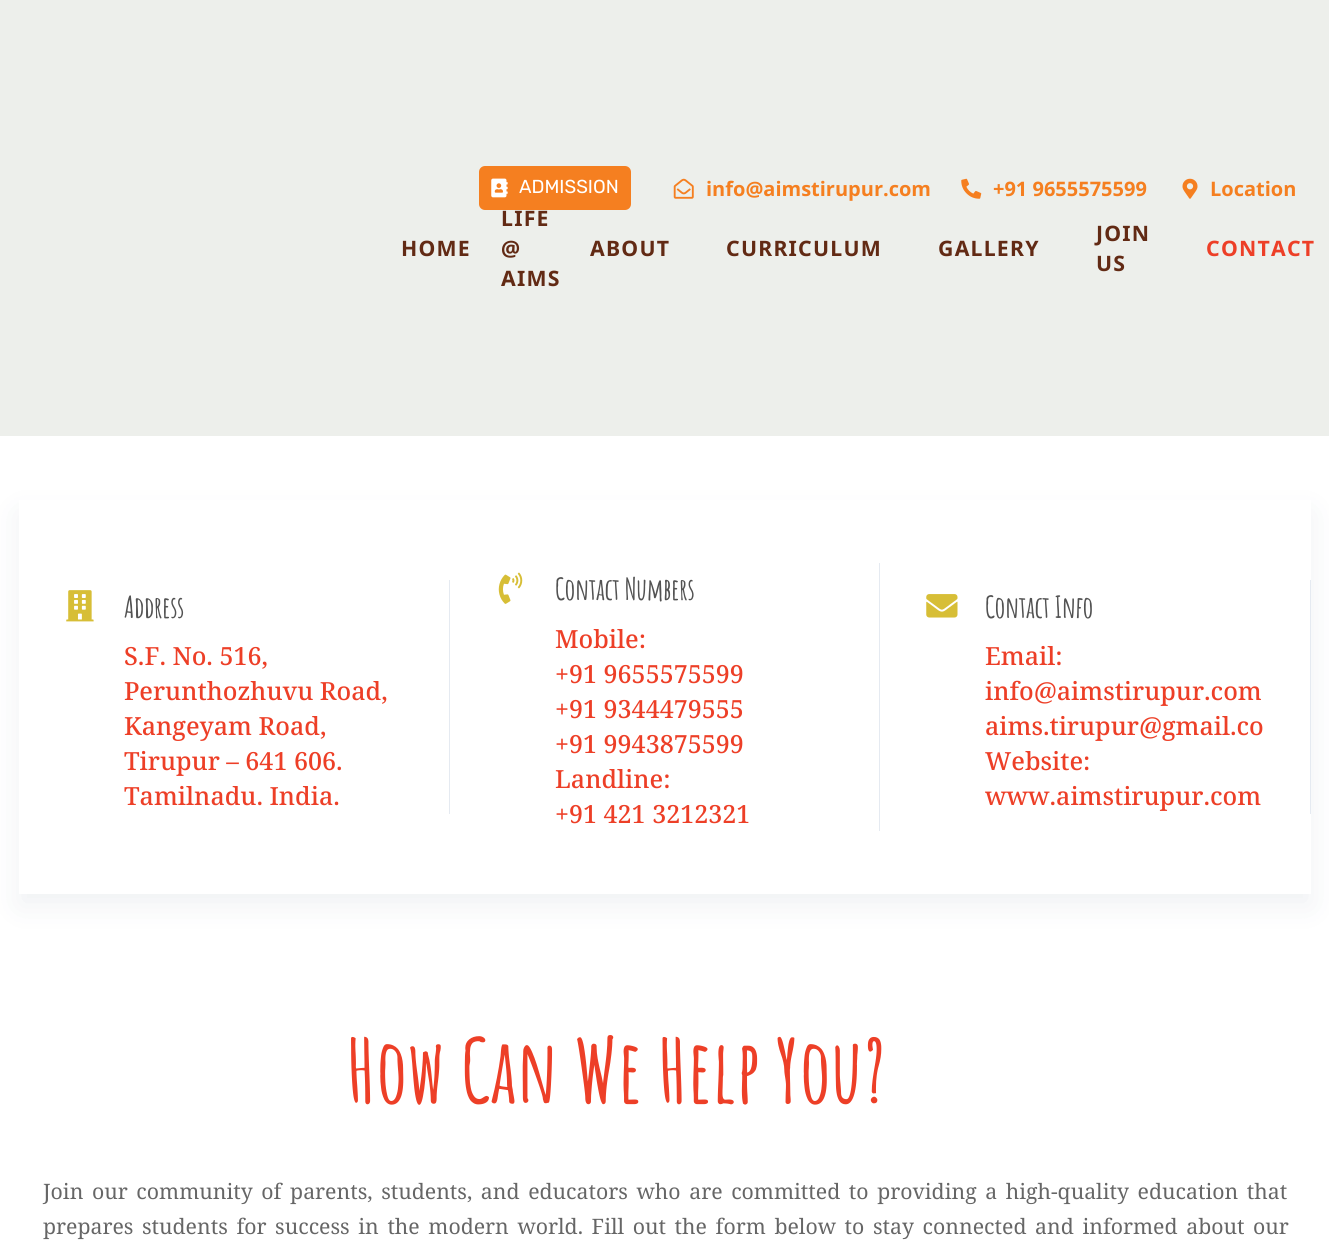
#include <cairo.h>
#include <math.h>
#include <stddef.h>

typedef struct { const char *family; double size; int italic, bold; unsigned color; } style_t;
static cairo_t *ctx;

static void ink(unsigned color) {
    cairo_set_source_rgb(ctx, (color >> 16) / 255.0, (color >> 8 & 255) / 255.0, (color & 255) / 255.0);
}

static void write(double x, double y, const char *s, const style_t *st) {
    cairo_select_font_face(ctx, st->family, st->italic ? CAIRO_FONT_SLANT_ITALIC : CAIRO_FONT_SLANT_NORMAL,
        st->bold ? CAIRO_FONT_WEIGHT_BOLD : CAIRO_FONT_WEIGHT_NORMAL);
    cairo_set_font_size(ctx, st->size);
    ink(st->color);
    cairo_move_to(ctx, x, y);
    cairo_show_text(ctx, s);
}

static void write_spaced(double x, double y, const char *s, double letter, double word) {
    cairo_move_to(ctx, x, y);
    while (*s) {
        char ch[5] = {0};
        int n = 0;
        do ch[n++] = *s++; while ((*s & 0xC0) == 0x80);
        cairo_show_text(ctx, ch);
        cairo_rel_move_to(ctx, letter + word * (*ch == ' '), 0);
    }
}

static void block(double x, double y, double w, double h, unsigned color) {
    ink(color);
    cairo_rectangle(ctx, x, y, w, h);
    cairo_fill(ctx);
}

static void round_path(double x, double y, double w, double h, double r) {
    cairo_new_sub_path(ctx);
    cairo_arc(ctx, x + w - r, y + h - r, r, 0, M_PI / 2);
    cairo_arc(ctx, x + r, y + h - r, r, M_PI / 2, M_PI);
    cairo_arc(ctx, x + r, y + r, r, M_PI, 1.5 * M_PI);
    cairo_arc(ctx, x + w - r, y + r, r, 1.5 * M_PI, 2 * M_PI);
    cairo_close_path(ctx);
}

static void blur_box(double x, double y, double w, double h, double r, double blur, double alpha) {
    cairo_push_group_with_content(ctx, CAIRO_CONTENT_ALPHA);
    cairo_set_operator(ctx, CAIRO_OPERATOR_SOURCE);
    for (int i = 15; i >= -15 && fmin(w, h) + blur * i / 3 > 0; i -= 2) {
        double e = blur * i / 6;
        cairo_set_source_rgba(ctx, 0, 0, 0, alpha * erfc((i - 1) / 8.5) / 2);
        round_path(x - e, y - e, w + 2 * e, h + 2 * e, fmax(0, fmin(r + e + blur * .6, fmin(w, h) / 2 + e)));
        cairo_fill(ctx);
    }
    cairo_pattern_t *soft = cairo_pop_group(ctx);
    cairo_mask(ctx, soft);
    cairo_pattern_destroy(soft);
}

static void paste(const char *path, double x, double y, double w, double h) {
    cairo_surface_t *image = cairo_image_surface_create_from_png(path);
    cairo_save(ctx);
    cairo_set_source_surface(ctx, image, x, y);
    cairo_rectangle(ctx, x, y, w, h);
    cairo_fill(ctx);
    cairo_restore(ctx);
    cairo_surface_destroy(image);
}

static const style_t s1 = {"Rubik", 18.75, 0, 0, 0xffffff};
static const style_t s2 = {"Open Sans", 20, 0, 1, 0xf57f20};
static const style_t s3 = {"Noto Serif Medium", 25, 0, 0, 0xed3f27};
static const style_t s4 = {"Amatic SC", 87.5, 0, 1, 0xed3f27};

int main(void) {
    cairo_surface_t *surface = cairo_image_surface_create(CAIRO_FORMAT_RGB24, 1329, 1253);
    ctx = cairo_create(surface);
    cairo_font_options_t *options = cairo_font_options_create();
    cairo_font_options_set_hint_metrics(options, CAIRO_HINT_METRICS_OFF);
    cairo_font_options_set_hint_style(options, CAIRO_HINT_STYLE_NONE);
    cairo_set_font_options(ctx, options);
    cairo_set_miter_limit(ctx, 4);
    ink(0xffffff);
    cairo_paint(ctx);
    block(0, 0, 1329, 436, 0xedefeb);
    ink(0xf57f20);
    round_path(479, 166, 152, 44, 6);
    cairo_fill(ctx);
    paste("pic1.png", 491, 178, 17, 20);
    write(519, 193, "ADMISSION", &s1);
    paste("pic2.png", 673, 178, 21, 21);
    write(706, 196, "info@aimstirupur.com", &s2);
    paste("pic3.png", 961, 178, 21, 21);
    write(993, 196, "+91 9655575599", &s2);
    paste("pic4.png", 1182, 178, 16, 21);
    write(1210, 196, "Location", &s2);
    cairo_select_font_face(ctx, "Noto Sans", CAIRO_FONT_SLANT_NORMAL, CAIRO_FONT_WEIGHT_BOLD);
    cairo_set_font_size(ctx, 21.25);
    ink(0x622a14);
    write_spaced(401, 256, "HOME", 1.25, 0);
    write_spaced(501, 226, "LIFE", 1.25, 0);
    write_spaced(501, 256, "@", 1.25, 0);
    write_spaced(501, 286, "AIMS", 1.25, 0);
    write_spaced(590, 256, "ABOUT", 1.25, 0);
    write_spaced(726, 256, "CURRICULUM", 1.25, 0);
    write_spaced(938, 256, "GALLERY", 1.25, 0);
    write_spaced(1096, 241, "JOIN", 1.25, 0);
    write_spaced(1096, 271, "US", 1.25, 0);
    ink(0xed3f27);
    write_spaced(1206, 256, "CONTACT", 1.25, 0);
    cairo_save(ctx);
    cairo_set_fill_rule(ctx, CAIRO_FILL_RULE_EVEN_ODD);
    cairo_new_path(ctx);
    cairo_move_to(ctx, 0, 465);
    cairo_line_to(ctx, 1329, 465);
    cairo_line_to(ctx, 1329, 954);
    cairo_line_to(ctx, 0, 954);
    cairo_close_path(ctx);
    cairo_move_to(ctx, 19, 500);
    cairo_line_to(ctx, 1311, 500);
    cairo_line_to(ctx, 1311, 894);
    cairo_line_to(ctx, 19, 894);
    cairo_close_path(ctx);
    cairo_clip(ctx);
    ink(0x193656);
    blur_box(19, 513, 1292, 393, 0, 15.5, 0.07);
    cairo_restore(ctx);
    block(449, 580, 1, 234, 0xe5eaf1);
    paste("pic5.png", 66, 590, 28, 32);
    cairo_select_font_face(ctx, "Amatic SC", CAIRO_FONT_SLANT_NORMAL, CAIRO_FONT_WEIGHT_BOLD);
    cairo_set_font_size(ctx, 30);
    ink(0x525252);
    write_spaced(124, 618, "Address", -0.5, 0);
    write(124, 665, "S.F. No. 516,", &s3);
    write(124, 700, "Perunthozhuvu Road,", &s3);
    write(124, 735, "Kangeyam Road,", &s3);
    write(124, 770, "Tirupur – 641 606.", &s3);
    write(124, 805, "Tamilnadu. India.", &s3);
    block(879, 563, 1, 268, 0xe5eaf1);
    paste("pic6.png", 498, 572, 25, 32);
    cairo_select_font_face(ctx, "Amatic SC", CAIRO_FONT_SLANT_NORMAL, CAIRO_FONT_WEIGHT_BOLD);
    cairo_set_font_size(ctx, 30);
    ink(0x525252);
    write_spaced(555, 600, "Contact Numbers", -0.5, 0);
    write(555, 648, "Mobile:", &s3);
    write(555, 683, "+91 9655575599", &s3);
    write(555, 718, "+91 9344479555", &s3);
    write(555, 753, "+91 9943875599", &s3);
    write(555, 788, "Landline:", &s3);
    write(555, 823, "+91 421 3212321", &s3);
    block(1310, 580, 1, 234, 0xe5eaf1);
    paste("pic7.png", 926, 594, 32, 24);
    cairo_select_font_face(ctx, "Amatic SC", CAIRO_FONT_SLANT_NORMAL, CAIRO_FONT_WEIGHT_BOLD);
    cairo_set_font_size(ctx, 30);
    ink(0x525252);
    write_spaced(985, 618, "Contact Info", -0.5, 0);
    write(985, 665, "Email:", &s3);
    write(985, 700, "info@aimstirupur.com", &s3);
    write(985, 735, "aims.tirupur@gmail.co", &s3);
    write(985, 770, "Website:", &s3);
    write(985, 805, "www.aimstirupur.com", &s3);
    write(347, 1103, "How Can We Help You?", &s4);
    cairo_select_font_face(ctx, "Noto Serif", CAIRO_FONT_SLANT_NORMAL, CAIRO_FONT_WEIGHT_NORMAL);
    cairo_set_font_size(ctx, 21.25);
    ink(0x666666);
    write_spaced(43, 1199, "Join our community of parents, students, and educators who are committed to providing a high-quality education that", 0, 3.1);
    write_spaced(43, 1234, "prepares students for success in the modern world. Fill out the form below to stay connected and informed about our", 0, 3.1);
    cairo_surface_write_to_png(surface, "screenshot.png");
    cairo_font_options_destroy(options);
    cairo_destroy(ctx);
    cairo_surface_destroy(surface);
    return 0;
}
